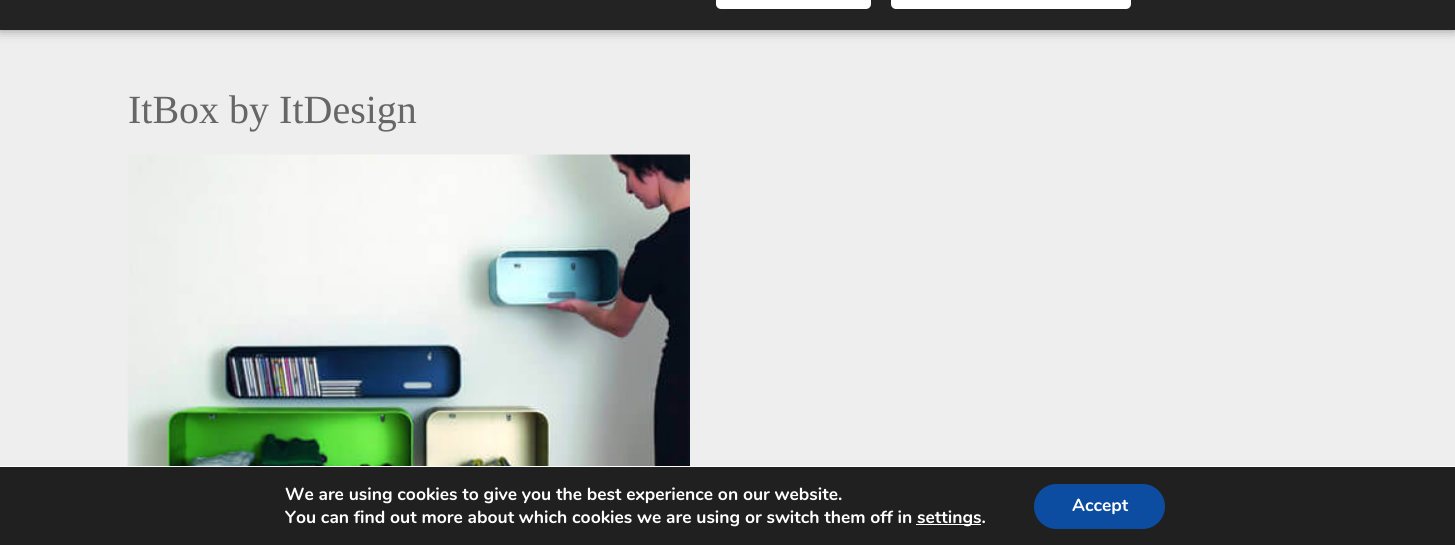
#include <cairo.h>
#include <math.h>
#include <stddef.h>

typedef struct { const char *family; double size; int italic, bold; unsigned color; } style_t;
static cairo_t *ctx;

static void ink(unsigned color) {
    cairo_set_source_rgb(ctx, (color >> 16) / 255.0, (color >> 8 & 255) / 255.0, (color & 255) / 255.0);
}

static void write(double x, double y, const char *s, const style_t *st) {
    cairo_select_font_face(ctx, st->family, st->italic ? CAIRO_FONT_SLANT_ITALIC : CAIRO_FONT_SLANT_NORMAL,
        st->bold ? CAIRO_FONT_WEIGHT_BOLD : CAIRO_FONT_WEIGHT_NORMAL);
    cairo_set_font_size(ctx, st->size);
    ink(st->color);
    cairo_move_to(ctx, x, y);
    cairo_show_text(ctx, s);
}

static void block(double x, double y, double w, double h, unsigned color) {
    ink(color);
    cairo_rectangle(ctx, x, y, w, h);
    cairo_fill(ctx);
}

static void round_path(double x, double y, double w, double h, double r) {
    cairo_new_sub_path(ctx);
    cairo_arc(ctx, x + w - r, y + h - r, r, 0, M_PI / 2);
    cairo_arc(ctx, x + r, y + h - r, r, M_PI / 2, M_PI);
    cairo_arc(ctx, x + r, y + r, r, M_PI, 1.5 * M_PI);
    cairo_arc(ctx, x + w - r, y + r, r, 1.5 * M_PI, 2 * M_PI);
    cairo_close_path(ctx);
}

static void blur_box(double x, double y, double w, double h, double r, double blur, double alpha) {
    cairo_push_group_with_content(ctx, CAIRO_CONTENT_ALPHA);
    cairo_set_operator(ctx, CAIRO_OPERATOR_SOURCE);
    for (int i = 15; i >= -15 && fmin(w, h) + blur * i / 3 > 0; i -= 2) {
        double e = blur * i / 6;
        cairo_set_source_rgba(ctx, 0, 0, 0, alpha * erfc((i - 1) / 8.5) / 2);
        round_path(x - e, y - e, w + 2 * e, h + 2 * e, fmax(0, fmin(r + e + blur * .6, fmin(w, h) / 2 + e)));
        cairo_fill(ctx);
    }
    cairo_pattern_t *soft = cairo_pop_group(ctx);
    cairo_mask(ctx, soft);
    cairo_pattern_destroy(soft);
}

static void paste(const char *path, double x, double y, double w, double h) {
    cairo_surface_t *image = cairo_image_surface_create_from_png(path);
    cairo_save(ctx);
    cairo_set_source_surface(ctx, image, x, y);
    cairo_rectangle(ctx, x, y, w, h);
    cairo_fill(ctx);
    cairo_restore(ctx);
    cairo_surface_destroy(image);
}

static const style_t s1 = {"Liberation Serif", 40, 0, 0, 0x666666};
static const style_t s2 = {"Nunito", 17.5, 0, 1, 0xffffff};

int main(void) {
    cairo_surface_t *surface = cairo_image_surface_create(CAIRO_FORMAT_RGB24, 1455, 545);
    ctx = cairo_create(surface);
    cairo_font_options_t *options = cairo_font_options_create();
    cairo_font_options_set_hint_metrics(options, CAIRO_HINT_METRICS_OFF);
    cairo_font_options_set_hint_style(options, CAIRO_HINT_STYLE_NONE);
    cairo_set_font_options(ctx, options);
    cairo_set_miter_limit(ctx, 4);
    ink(0xeeeeee);
    cairo_paint(ctx);
    ink(0x000000);
    blur_box(0, -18, 1455, 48, 0, 6, 0.4);
    block(0, 0, 1455, 30, 0x232323);
    ink(0xffffff);
    round_path(716, -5, 155, 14, 5);
    cairo_fill(ctx);
    round_path(891, -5, 240, 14, 5);
    cairo_fill(ctx);
    write(128, 123, "ItBox by ItDesign", &s1);
    paste("pic1.png", 127, 154, 563, 312);
    block(0, 467, 1455, 78, 0x202020);
    block(0, 466, 1455, 1, 0xffffff);
    write(285, 500, "We are using cookies to give you the best experience on our website.", &s2);
    write(285, 523, "You can find out more about which cookies we are using or switch them off in", &s2);
    block(916, 524, 65, 1, 0xffffff);
    write(917, 523, "settings.", &s2);
    ink(0x0c4da2);
    round_path(1034, 484, 131, 45, 22.5);
    cairo_fill(ctx);
    write(1072, 511, "Accept", &s2);
    cairo_surface_write_to_png(surface, "screenshot.png");
    cairo_font_options_destroy(options);
    cairo_destroy(ctx);
    cairo_surface_destroy(surface);
    return 0;
}
